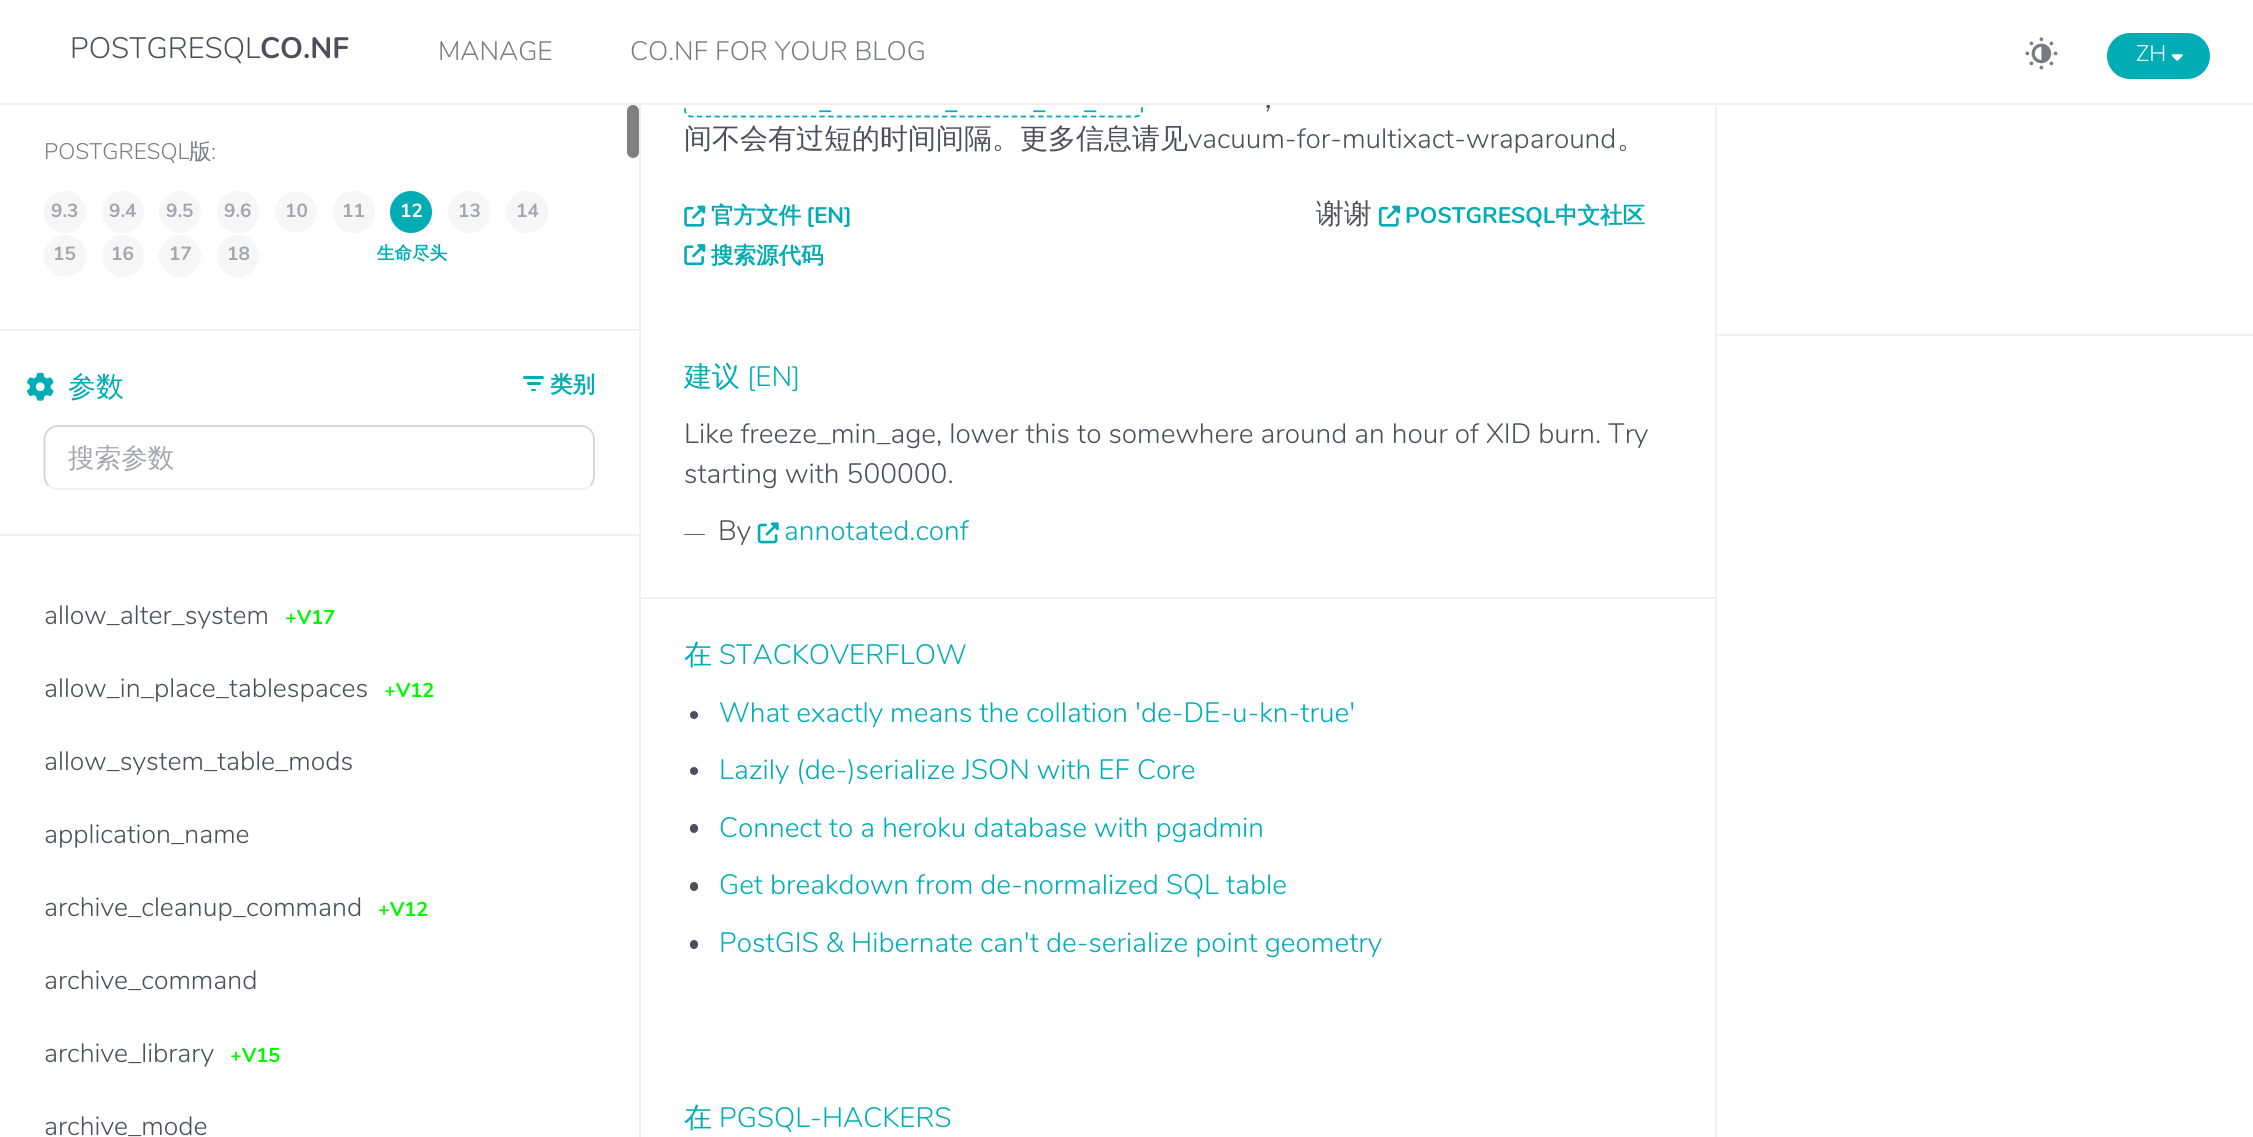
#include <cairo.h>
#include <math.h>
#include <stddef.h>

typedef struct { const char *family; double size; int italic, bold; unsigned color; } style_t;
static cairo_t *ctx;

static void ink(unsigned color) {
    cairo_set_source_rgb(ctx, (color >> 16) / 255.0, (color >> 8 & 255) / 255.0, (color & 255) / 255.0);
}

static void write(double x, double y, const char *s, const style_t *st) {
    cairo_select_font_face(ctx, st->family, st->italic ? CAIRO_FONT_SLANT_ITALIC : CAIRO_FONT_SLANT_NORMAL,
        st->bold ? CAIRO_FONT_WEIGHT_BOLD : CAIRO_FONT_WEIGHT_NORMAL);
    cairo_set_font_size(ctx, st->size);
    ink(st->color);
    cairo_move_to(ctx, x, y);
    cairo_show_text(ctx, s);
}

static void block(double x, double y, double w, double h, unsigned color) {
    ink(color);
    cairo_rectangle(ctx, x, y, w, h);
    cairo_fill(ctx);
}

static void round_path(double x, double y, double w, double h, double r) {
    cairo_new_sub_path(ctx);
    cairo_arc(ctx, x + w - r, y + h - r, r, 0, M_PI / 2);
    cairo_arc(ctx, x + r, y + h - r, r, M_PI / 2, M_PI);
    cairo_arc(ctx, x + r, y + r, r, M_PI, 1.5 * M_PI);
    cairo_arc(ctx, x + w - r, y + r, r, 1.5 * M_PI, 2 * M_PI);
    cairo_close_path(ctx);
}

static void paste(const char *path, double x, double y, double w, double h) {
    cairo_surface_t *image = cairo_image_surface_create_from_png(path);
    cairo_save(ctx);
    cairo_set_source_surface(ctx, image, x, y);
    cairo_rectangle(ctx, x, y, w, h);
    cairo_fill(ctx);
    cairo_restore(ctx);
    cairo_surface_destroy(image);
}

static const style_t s1 = {"WenQuanYi Zen Hei Medium", 28, 0, 0, 0x4d4f5c};
static const style_t s2 = {"Nunito Light", 29.5, 0, 0, 0x4d4f5c};
static const style_t s3 = {"Nunito", 29.5, 0, 1, 0x4d4f5c};
static const style_t s4 = {"Nunito Light", 26.6, 0, 0, 0x7a7b85};
static const style_t s5 = {"Nunito Light", 22.5, 0, 0, 0xffffff};
static const style_t s6 = {"Nunito Light", 22.5, 0, 0, 0x7a7b85};
static const style_t s7 = {"WenQuanYi Zen Hei Medium", 22.5, 0, 0, 0x7a7b85};
static const style_t s8 = {"Nunito", 19, 0, 1, 0xa6a7ae};
static const style_t s9 = {"Nunito", 19, 0, 1, 0xffffff};
static const style_t s10 = {"WenQuanYi Zen Hei", 17.5, 0, 1, 0x00adb5};
static const style_t s11 = {"WenQuanYi Zen Hei Medium", 28, 0, 0, 0x00adb5};
static const style_t s12 = {"WenQuanYi Zen Hei", 22.5, 0, 1, 0x00adb5};
static const style_t s13 = {"WenQuanYi Zen Hei Medium", 26.6, 0, 0, 0xa6a7ae};
static const style_t s14 = {"Nunito Light", 26.6, 0, 0, 0x4d4f5c};
static const style_t s15 = {"Nunito", 20, 0, 1, 0x00f900};
static const style_t s16 = {"Ubuntu Mono", 25, 0, 0, 0x00adb5};
static const style_t s17 = {"Nunito Light", 28, 0, 0, 0x4d4f5c};
static const style_t s18 = {"Nunito", 22.5, 0, 1, 0x00adb5};
static const style_t s19 = {"Nunito Light", 28, 0, 0, 0x00adb5};
static const style_t s20 = {"Nunito Light", 21, 0, 0, 0x4d4f5c};

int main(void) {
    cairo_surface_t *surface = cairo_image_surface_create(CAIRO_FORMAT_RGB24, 2253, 1137);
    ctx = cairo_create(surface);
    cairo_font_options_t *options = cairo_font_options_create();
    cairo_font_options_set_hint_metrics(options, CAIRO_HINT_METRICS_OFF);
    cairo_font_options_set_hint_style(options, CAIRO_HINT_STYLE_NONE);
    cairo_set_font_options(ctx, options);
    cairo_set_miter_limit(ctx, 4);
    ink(0xffffff);
    cairo_paint(ctx);
    cairo_new_path(ctx);
    cairo_move_to(ctx, 691, 83);
    cairo_line_to(ctx, 1136, 83);
    cairo_curve_to(ctx, 1139, 83, 1142, 86, 1142, 89);
    cairo_line_to(ctx, 1142, 110);
    cairo_curve_to(ctx, 1142, 113.5, 1139, 116.5, 1136, 116.5);
    cairo_line_to(ctx, 691, 116.5);
    cairo_curve_to(ctx, 688, 116.5, 685, 113.5, 685, 110);
    cairo_line_to(ctx, 685, 89);
    cairo_curve_to(ctx, 685, 86, 688, 83, 691, 83);
    cairo_close_path(ctx);
    ink(0x00adb5);
    cairo_set_line_width(ctx, 1.8);
    cairo_set_dash(ctx, (double[]){5.25, 3.5}, 2, 0);
    cairo_stroke(ctx);
    block(684, 82, 459, 21, 0xffffff);
    write(1254, 108, "，", &s1);
    block(0, 103, 2253, 2, 0xf0f0f1);
    write(70, 58, "POSTGRESQL", &s2);
    write(260, 58, "CO.NF", &s3);
    write(438, 60, "MANAGE", &s4);
    write(630, 60, "CO.NF FOR YOUR BLOG", &s4);
    paste("pic1.png", 2025, 37, 33, 33);
    ink(0x00adb5);
    round_path(2107, 33, 103, 46, 23);
    cairo_fill(ctx);
    write(2136, 61, "ZH", &s5);
    paste("pic2.png", 2171, 54, 12, 7);
    ink(0x808080);
    round_path(627, 105, 12, 53, 6);
    cairo_fill(ctx);
    block(0, 329, 639, 2, 0xf0f0f1);
    write(44, 159, "POSTGRESQL", &s6);
    write(189, 159, "版", &s7);
    write(211, 159, ":", &s6);
    ink(0xf6f6f7);
    cairo_new_path(ctx);
    cairo_arc(ctx, 65, 212, 21, 0, 2 * M_PI);
    cairo_fill(ctx);
    write(51, 217, "9.3", &s8);
    ink(0xf6f6f7);
    cairo_new_path(ctx);
    cairo_arc(ctx, 123, 212, 21, 0, 2 * M_PI);
    cairo_fill(ctx);
    write(109, 217, "9.4", &s8);
    ink(0xf6f6f7);
    cairo_new_path(ctx);
    cairo_arc(ctx, 180, 212, 21, 0, 2 * M_PI);
    cairo_fill(ctx);
    write(166, 217, "9.5", &s8);
    ink(0xf6f6f7);
    cairo_new_path(ctx);
    cairo_arc(ctx, 238, 212, 21, 0, 2 * M_PI);
    cairo_fill(ctx);
    write(224, 217, "9.6", &s8);
    ink(0xf6f6f7);
    cairo_new_path(ctx);
    cairo_arc(ctx, 296, 212, 21, 0, 2 * M_PI);
    cairo_fill(ctx);
    write(285, 217, "10", &s8);
    ink(0xf6f6f7);
    cairo_new_path(ctx);
    cairo_arc(ctx, 354, 212, 21, 0, 2 * M_PI);
    cairo_fill(ctx);
    write(342, 217, "11", &s8);
    ink(0x00adb5);
    cairo_new_path(ctx);
    cairo_arc(ctx, 411, 212, 21, 0, 2 * M_PI);
    cairo_fill(ctx);
    write(400, 217, "12", &s9);
    write(377, 259, "生命尽头", &s10);
    ink(0xf6f6f7);
    cairo_new_path(ctx);
    cairo_arc(ctx, 469, 212, 21, 0, 2 * M_PI);
    cairo_fill(ctx);
    write(458, 217, "13", &s8);
    ink(0xf6f6f7);
    cairo_new_path(ctx);
    cairo_arc(ctx, 527, 212, 21, 0, 2 * M_PI);
    cairo_fill(ctx);
    write(516, 217, "14", &s8);
    ink(0xf6f6f7);
    cairo_new_path(ctx);
    cairo_arc(ctx, 65, 256, 21, 0, 2 * M_PI);
    cairo_fill(ctx);
    write(53, 260, "15", &s8);
    ink(0xf6f6f7);
    cairo_new_path(ctx);
    cairo_arc(ctx, 123, 256, 21, 0, 2 * M_PI);
    cairo_fill(ctx);
    write(111, 260, "16", &s8);
    ink(0xf6f6f7);
    cairo_new_path(ctx);
    cairo_arc(ctx, 180, 256, 21, 0, 2 * M_PI);
    cairo_fill(ctx);
    write(169, 260, "17", &s8);
    ink(0xf6f6f7);
    cairo_new_path(ctx);
    cairo_arc(ctx, 238, 256, 21, 0, 2 * M_PI);
    cairo_fill(ctx);
    write(227, 260, "18", &s8);
    paste("pic3.png", 27, 372, 27, 29);
    write(68, 396, "参数", &s11);
    write(550, 392, "类别", &s12);
    round_path(523, 376, 21, 3, 1.5);
    cairo_fill(ctx);
    round_path(527, 382, 14, 3, 1.5);
    cairo_fill(ctx);
    round_path(531, 389, 5, 2, 1);
    cairo_fill(ctx);
    cairo_new_path(ctx);
    cairo_move_to(ctx, 590.5, 485.5);
    cairo_curve_to(ctx, 588, 487.5, 584.5, 489, 581, 489);
    cairo_line_to(ctx, 58, 489);
    cairo_curve_to(ctx, 54.5, 489, 51, 487.5, 48.5, 485.5);
    ink(0xf0f0f1);
    cairo_set_dash(ctx, NULL, 0, 0);
    cairo_stroke(ctx);
    cairo_new_path(ctx);
    cairo_move_to(ctx, 48.5, 485.5);
    cairo_curve_to(ctx, 46, 483, 44.5, 479.5, 44.5, 476);
    cairo_line_to(ctx, 44.5, 439);
    cairo_curve_to(ctx, 44.5, 436, 46, 432.5, 48.5, 430);
    cairo_curve_to(ctx, 51, 427.5, 54.5, 426, 58, 426);
    cairo_line_to(ctx, 581, 426);
    cairo_curve_to(ctx, 584.5, 426, 588, 427.5, 590.5, 430);
    cairo_curve_to(ctx, 592.5, 432.5, 594, 436, 594, 439);
    cairo_line_to(ctx, 594, 476);
    cairo_curve_to(ctx, 594, 479.5, 592.5, 483, 590.5, 485.5);
    ink(0xd3d3d6);
    cairo_stroke(ctx);
    ink(0xffffff);
    cairo_new_path(ctx);
    cairo_move_to(ctx, 58, 427);
    cairo_line_to(ctx, 523, 427);
    cairo_line_to(ctx, 523, 488);
    cairo_line_to(ctx, 58, 488);
    cairo_curve_to(ctx, 51.5, 488, 46, 482.5, 46, 476);
    cairo_line_to(ctx, 46, 439);
    cairo_curve_to(ctx, 46, 432.5, 51.5, 427, 58, 427);
    cairo_close_path(ctx);
    cairo_fill(ctx);
    write(68, 467, "搜索参数", &s13);
    ink(0xffffff);
    cairo_new_path(ctx);
    cairo_move_to(ctx, 522, 427);
    cairo_line_to(ctx, 581, 427);
    cairo_curve_to(ctx, 587.5, 427, 593, 432.5, 593, 439);
    cairo_line_to(ctx, 593, 476);
    cairo_curve_to(ctx, 593, 482.5, 587.5, 488, 581, 488);
    cairo_line_to(ctx, 522, 488);
    cairo_close_path(ctx);
    cairo_fill(ctx);
    block(0, 534, 639, 2, 0xf0f0f1);
    write(44, 624, "allow_alter_system", &s14);
    write(285, 624, "+V17", &s15);
    write(44, 697, "allow_in_place_tablespaces", &s14);
    write(384, 697, "+V12", &s15);
    write(44, 770, "allow_system_table_mods", &s14);
    write(44, 843, "application_name", &s14);
    write(44, 916, "archive_cleanup_command", &s14);
    write(378, 916, "+V12", &s15);
    write(44, 989, "archive_command", &s14);
    write(44, 1062, "archive_library", &s14);
    write(230, 1062, "+V15", &s15);
    write(44, 1135, "archive_mode", &s14);
    block(639, 105, 2, 1032, 0xf0f0f1);
    block(1715, 105, 2, 1032, 0xf0f0f1);
    write(819, 108, "_", &s16);
    write(945, 108, "_", &s16);
    write(1033, 108, "_", &s16);
    write(1084, 108, "_", &s16);
    write(684, 148, "间不会有过短的时间间隔。更多信息请见", &s1);
    write(1188, 148, "vacuum-for-multixact-wraparound", &s17);
    write(1617, 148, "。", &s1);
    paste("pic4.png", 684, 205, 22, 22);
    write(711, 223, "官方文件", &s12);
    write(806, 223, "[EN]", &s18);
    write(1316, 223, "谢谢", &s1);
    paste("pic5.png", 1379, 205, 21, 22);
    write(1405, 223, "POSTGRESQL", &s18);
    write(1555, 223, "中文社区", &s12);
    paste("pic6.png", 684, 244, 22, 22);
    write(711, 263, "搜索源代码", &s12);
    write(684, 386, "建议", &s11);
    write(747, 386, "[EN]", &s19);
    write(684, 443, "Like freeze_min_age, lower this to somewhere around an hour of XID burn. Try", &s17);
    write(684, 483, "starting with 500000.", &s17);
    write(684, 540, "—", &s20);
    write(718, 540, "By", &s17);
    paste("pic7.png", 757, 522, 22, 22);
    write(784, 540, "annotated.conf", &s19);
    block(641, 597, 1074, 2, 0xf0f0f1);
    write(684, 664, "在", &s11);
    write(719, 664, "STACKOVERFLOW", &s19);
    ink(0x4d4f5c);
    cairo_new_path(ctx);
    cairo_arc(ctx, 694, 715, 4, 0, 2 * M_PI);
    cairo_fill(ctx);
    write(719, 722, "What exactly means the collation 'de-DE-u-kn-true'", &s19);
    ink(0x4d4f5c);
    cairo_new_path(ctx);
    cairo_arc(ctx, 694, 771, 4, 0, 2 * M_PI);
    cairo_fill(ctx);
    write(719, 779, "Lazily (de-)serialize JSON with EF Core", &s19);
    ink(0x4d4f5c);
    round_path(690, 824, 8, 9, 4);
    cairo_fill(ctx);
    write(719, 837, "Connect to a heroku database with pgadmin", &s19);
    ink(0x4d4f5c);
    round_path(690, 882, 8, 9, 4);
    cairo_fill(ctx);
    write(719, 894, "Get breakdown from de-normalized SQL table", &s19);
    ink(0x4d4f5c);
    round_path(690, 940, 8, 9, 4);
    cairo_fill(ctx);
    write(719, 952, "PostGIS & Hibernate can't de-serialize point geometry", &s19);
    write(684, 1127, "在", &s11);
    write(719, 1127, "PGSQL-HACKERS", &s19);
    block(1717, 334, 536, 2, 0xf0f0f1);
    cairo_surface_write_to_png(surface, "screenshot.png");
    cairo_font_options_destroy(options);
    cairo_destroy(ctx);
    cairo_surface_destroy(surface);
    return 0;
}
